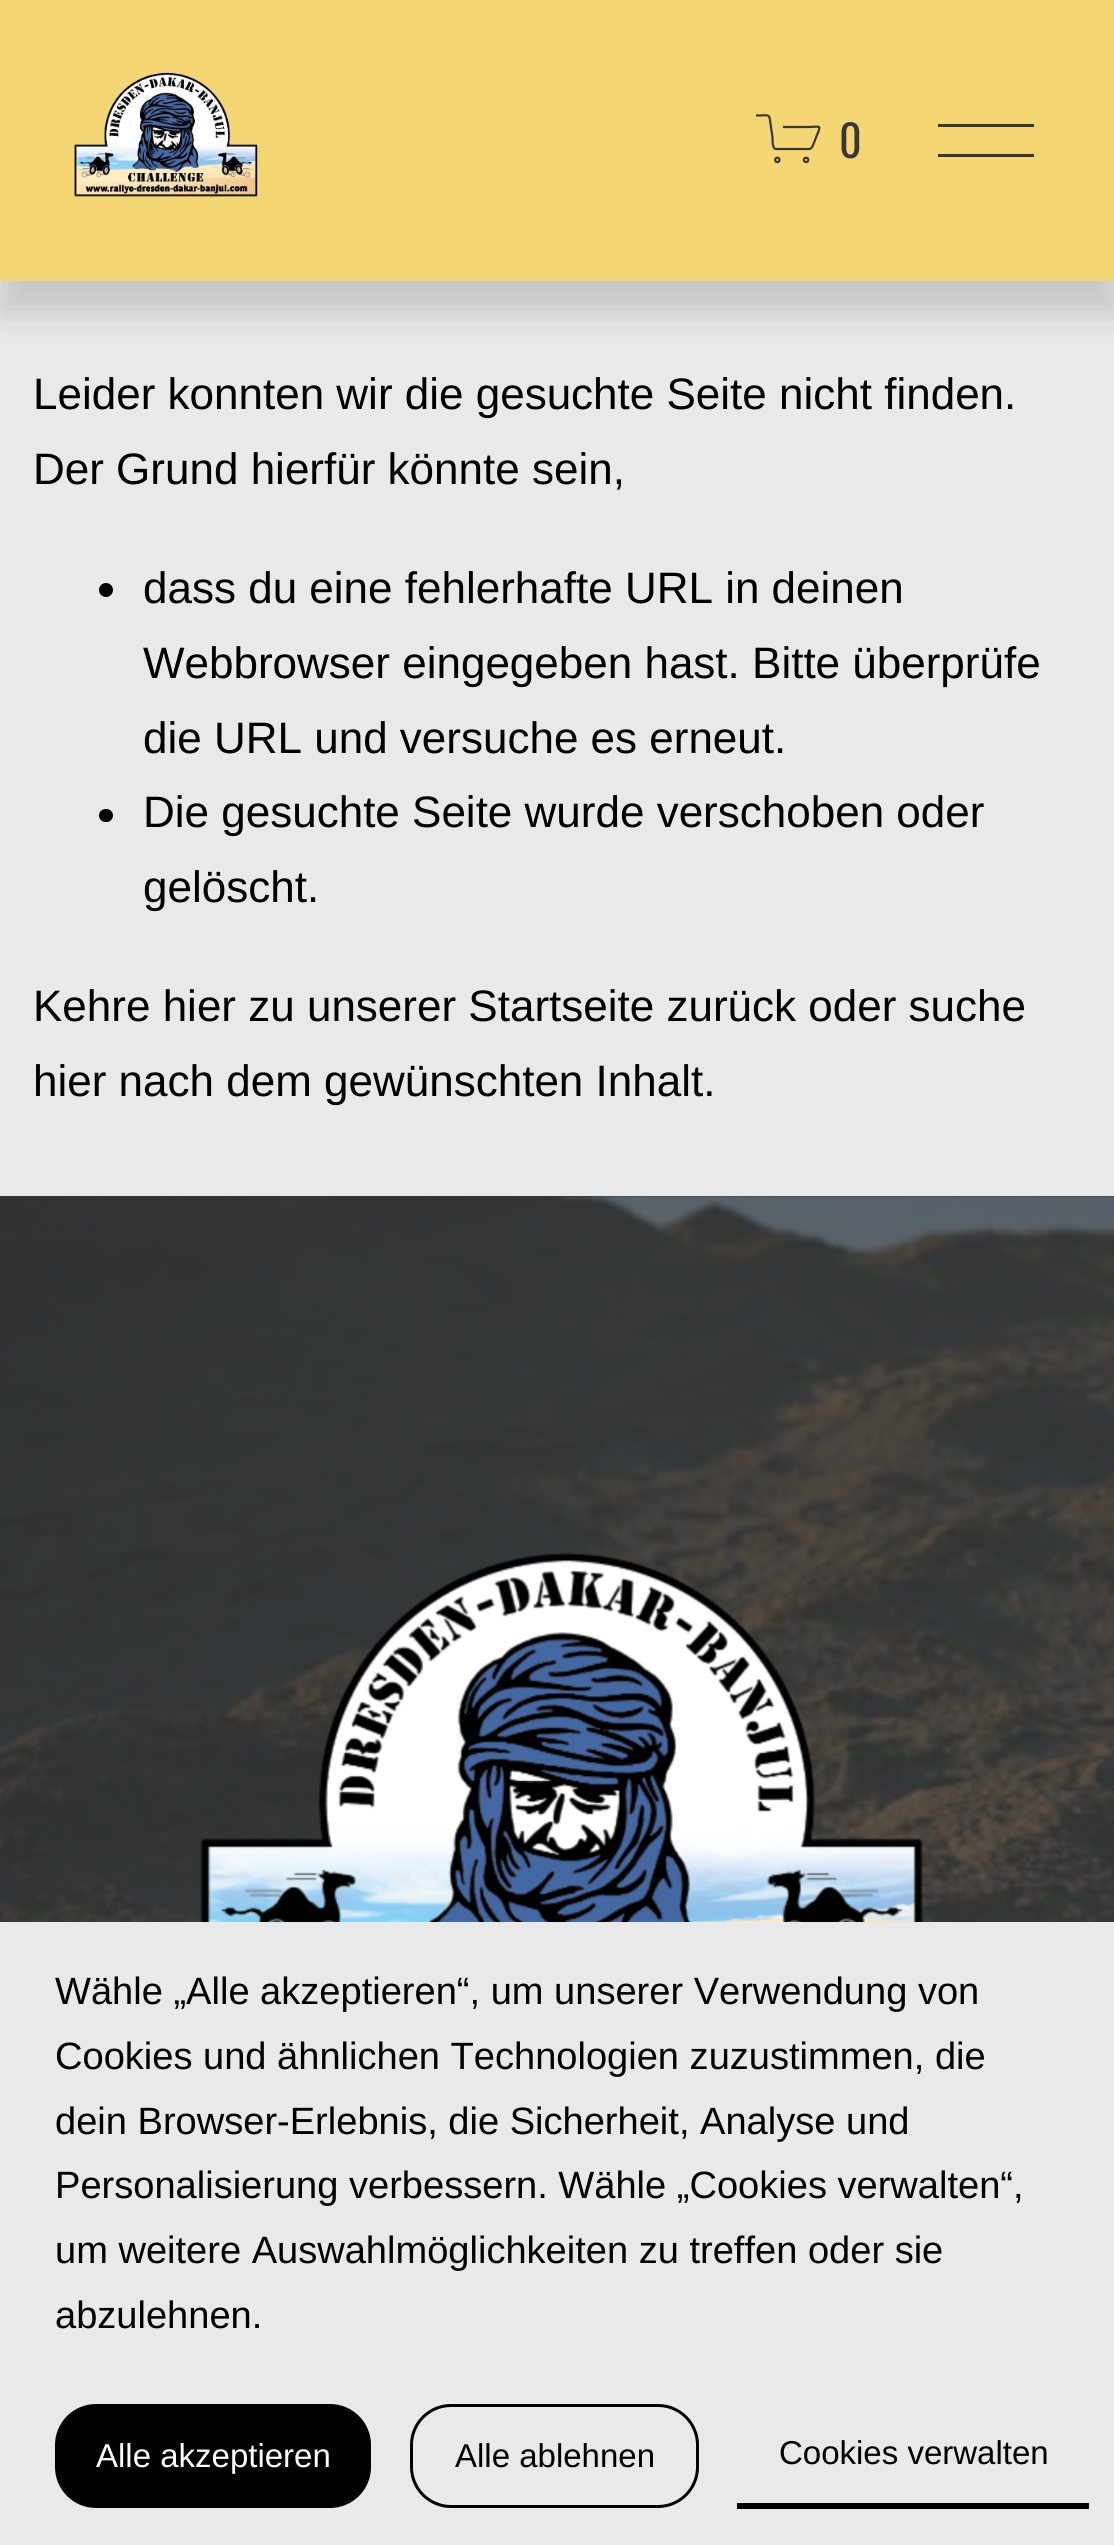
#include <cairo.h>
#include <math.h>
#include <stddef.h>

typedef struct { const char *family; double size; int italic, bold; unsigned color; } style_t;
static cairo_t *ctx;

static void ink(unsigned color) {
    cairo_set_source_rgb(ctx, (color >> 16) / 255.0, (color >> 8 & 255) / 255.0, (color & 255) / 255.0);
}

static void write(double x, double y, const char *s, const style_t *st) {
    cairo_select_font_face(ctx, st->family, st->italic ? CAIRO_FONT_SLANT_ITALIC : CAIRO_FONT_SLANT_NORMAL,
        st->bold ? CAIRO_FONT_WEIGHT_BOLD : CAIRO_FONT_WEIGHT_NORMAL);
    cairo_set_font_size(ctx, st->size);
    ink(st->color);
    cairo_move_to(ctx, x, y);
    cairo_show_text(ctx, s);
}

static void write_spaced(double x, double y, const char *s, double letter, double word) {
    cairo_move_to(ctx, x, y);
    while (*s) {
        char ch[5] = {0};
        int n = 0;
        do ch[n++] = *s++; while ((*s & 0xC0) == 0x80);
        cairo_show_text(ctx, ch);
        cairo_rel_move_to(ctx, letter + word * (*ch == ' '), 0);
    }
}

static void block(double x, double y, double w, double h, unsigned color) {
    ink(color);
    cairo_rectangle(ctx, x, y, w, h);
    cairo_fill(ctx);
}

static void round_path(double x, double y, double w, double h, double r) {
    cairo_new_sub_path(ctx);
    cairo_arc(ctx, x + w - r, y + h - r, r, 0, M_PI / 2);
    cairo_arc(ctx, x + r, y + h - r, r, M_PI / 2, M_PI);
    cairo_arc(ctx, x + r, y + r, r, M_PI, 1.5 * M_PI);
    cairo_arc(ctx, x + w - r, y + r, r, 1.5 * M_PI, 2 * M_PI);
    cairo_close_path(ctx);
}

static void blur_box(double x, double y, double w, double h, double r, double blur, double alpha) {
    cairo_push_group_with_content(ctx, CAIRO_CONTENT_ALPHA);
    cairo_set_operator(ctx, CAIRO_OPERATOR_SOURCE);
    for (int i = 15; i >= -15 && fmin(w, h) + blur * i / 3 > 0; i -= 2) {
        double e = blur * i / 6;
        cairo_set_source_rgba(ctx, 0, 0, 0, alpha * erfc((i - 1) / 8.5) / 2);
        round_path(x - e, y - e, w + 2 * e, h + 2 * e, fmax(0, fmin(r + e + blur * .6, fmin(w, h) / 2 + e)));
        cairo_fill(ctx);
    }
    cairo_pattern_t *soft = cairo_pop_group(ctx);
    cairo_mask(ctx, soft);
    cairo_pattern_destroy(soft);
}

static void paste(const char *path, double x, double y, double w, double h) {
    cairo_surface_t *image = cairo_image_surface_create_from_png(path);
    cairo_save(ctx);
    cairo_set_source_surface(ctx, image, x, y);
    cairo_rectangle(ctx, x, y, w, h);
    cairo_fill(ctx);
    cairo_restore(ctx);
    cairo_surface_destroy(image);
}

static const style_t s1 = {"Arimo", 44, 0, 0, 0x000000};
static const style_t s2 = {"Arimo", 38.05, 0, 0, 0x000000};
static const style_t s3 = {"Arimo", 33, 0, 0, 0xffffff};
static const style_t s4 = {"Arimo", 33, 0, 0, 0x000000};

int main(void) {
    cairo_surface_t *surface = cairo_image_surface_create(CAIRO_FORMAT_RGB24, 1114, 2545);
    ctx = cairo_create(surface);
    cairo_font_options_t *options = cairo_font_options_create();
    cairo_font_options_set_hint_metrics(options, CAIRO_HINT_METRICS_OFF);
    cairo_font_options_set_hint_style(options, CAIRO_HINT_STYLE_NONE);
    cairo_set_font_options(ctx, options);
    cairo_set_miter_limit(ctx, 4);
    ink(0xe9e9e9);
    cairo_paint(ctx);
    cairo_save(ctx);
    cairo_set_fill_rule(ctx, CAIRO_FILL_RULE_EVEN_ODD);
    cairo_new_path(ctx);
    cairo_move_to(ctx, 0, 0);
    cairo_line_to(ctx, 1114, 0);
    cairo_line_to(ctx, 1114, 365);
    cairo_line_to(ctx, 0, 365);
    cairo_close_path(ctx);
    cairo_move_to(ctx, 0, 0);
    cairo_line_to(ctx, 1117, 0);
    cairo_line_to(ctx, 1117, 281);
    cairo_line_to(ctx, 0, 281);
    cairo_close_path(ctx);
    cairo_clip(ctx);
    ink(0xc6c6c6);
    blur_box(0, 33, 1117, 281, 0, 16.5, 1);
    cairo_restore(ctx);
    cairo_set_source_rgba(ctx, 1, 0.78, 0, 0.5);
    cairo_rectangle(ctx, 0, 0, 1114, 281);
    cairo_fill(ctx);
    paste("pic1.png", 74, 72, 184, 125);
    cairo_arc(ctx, 806.1, 159.9, 2.2, 0, 2 * M_PI);
    ink(0x383838);
    cairo_set_line_width(ctx, 2.2);
    cairo_stroke(ctx);
    cairo_arc(ctx, 777.3, 159.9, 2.2, 0, 2 * M_PI);
    cairo_stroke(ctx);
    cairo_new_path(ctx);
    cairo_move_to(ctx, 756, 115.5);
    cairo_curve_to(ctx, 771, 115.5, 769, 112.5, 771, 127.5);
    cairo_line_to(ctx, 772.5, 137);
    cairo_curve_to(ctx, 772.5, 139, 772, 149, 776, 149);
    cairo_line_to(ctx, 803.5, 149);
    cairo_curve_to(ctx, 810.5, 149, 811, 150, 813.5, 144);
    cairo_line_to(ctx, 817, 135);
    cairo_curve_to(ctx, 821.5, 124, 820.5, 127, 806.5, 127);
    cairo_line_to(ctx, 783, 127);
    cairo_stroke(ctx);
    cairo_select_font_face(ctx, "Oswald", CAIRO_FONT_SLANT_NORMAL, CAIRO_FONT_WEIGHT_NORMAL);
    cairo_set_font_size(ctx, 44);
    write_spaced(839, 158, "0", -1, 0);
    block(938, 124, 96, 3, 0x383838);
    block(938, 154, 96, 3, 0x383838);
    write(33, 409, "Leider konnten wir die gesuchte Seite nicht finden.", &s1);
    write(33, 484, "Der Grund hierfür könnte sein,", &s1);
    cairo_new_path(ctx);
    cairo_arc(ctx, 106, 590, 7, 0, 2 * M_PI);
    cairo_fill(ctx);
    write(143, 603, "dass du eine fehlerhafte URL in deinen", &s1);
    write(143, 678, "Webbrowser eingegeben hast. Bitte überprüfe", &s1);
    write(143, 753, "die URL und versuche es erneut.", &s1);
    round_path(99, 809, 14, 13, 6.5);
    cairo_fill(ctx);
    write(143, 827, "Die gesuchte Seite wurde verschoben oder", &s1);
    write(143, 902, "gelöscht.", &s1);
    write(33, 1021, "Kehre hier zu unserer Startseite zurück oder suche", &s1);
    write(33, 1096, "hier nach dem gewünschten Inhalt.", &s1);
    block(0, 1196, 1114, 1, 0x383838);
    paste("pic2.png", 0, 1196, 1114, 726);
    paste("pic3.png", 200, 1552, 723, 370);
    write(55, 2004, "Wähle „Alle akzeptieren“, um unserer Verwendung von", &s2);
    write(55, 2069, "Cookies und ähnlichen Technologien zuzustimmen, die", &s2);
    write(55, 2134, "dein Browser-Erlebnis, die Sicherheit, Analyse und", &s2);
    write(55, 2198, "Personalisierung verbessern. Wähle „Cookies verwalten“,", &s2);
    write(55, 2263, "um weitere Auswahlmöglichkeiten zu treffen oder sie", &s2);
    write(55, 2328, "abzulehnen.", &s2);
    round_path(55, 2404, 316, 104, 41);
    cairo_fill(ctx);
    write(96, 2467, "Alle akzeptieren", &s3);
    round_path(411.5, 2405.5, 286, 101, 39.5);
    ink(0x000000);
    cairo_set_line_width(ctx, 3);
    cairo_stroke(ctx);
    write(455, 2467, "Alle ablehnen", &s4);
    block(737, 2503, 352, 6, 0x000000);
    write(779, 2464, "Cookies verwalten", &s4);
    cairo_surface_write_to_png(surface, "screenshot.png");
    cairo_font_options_destroy(options);
    cairo_destroy(ctx);
    cairo_surface_destroy(surface);
    return 0;
}
